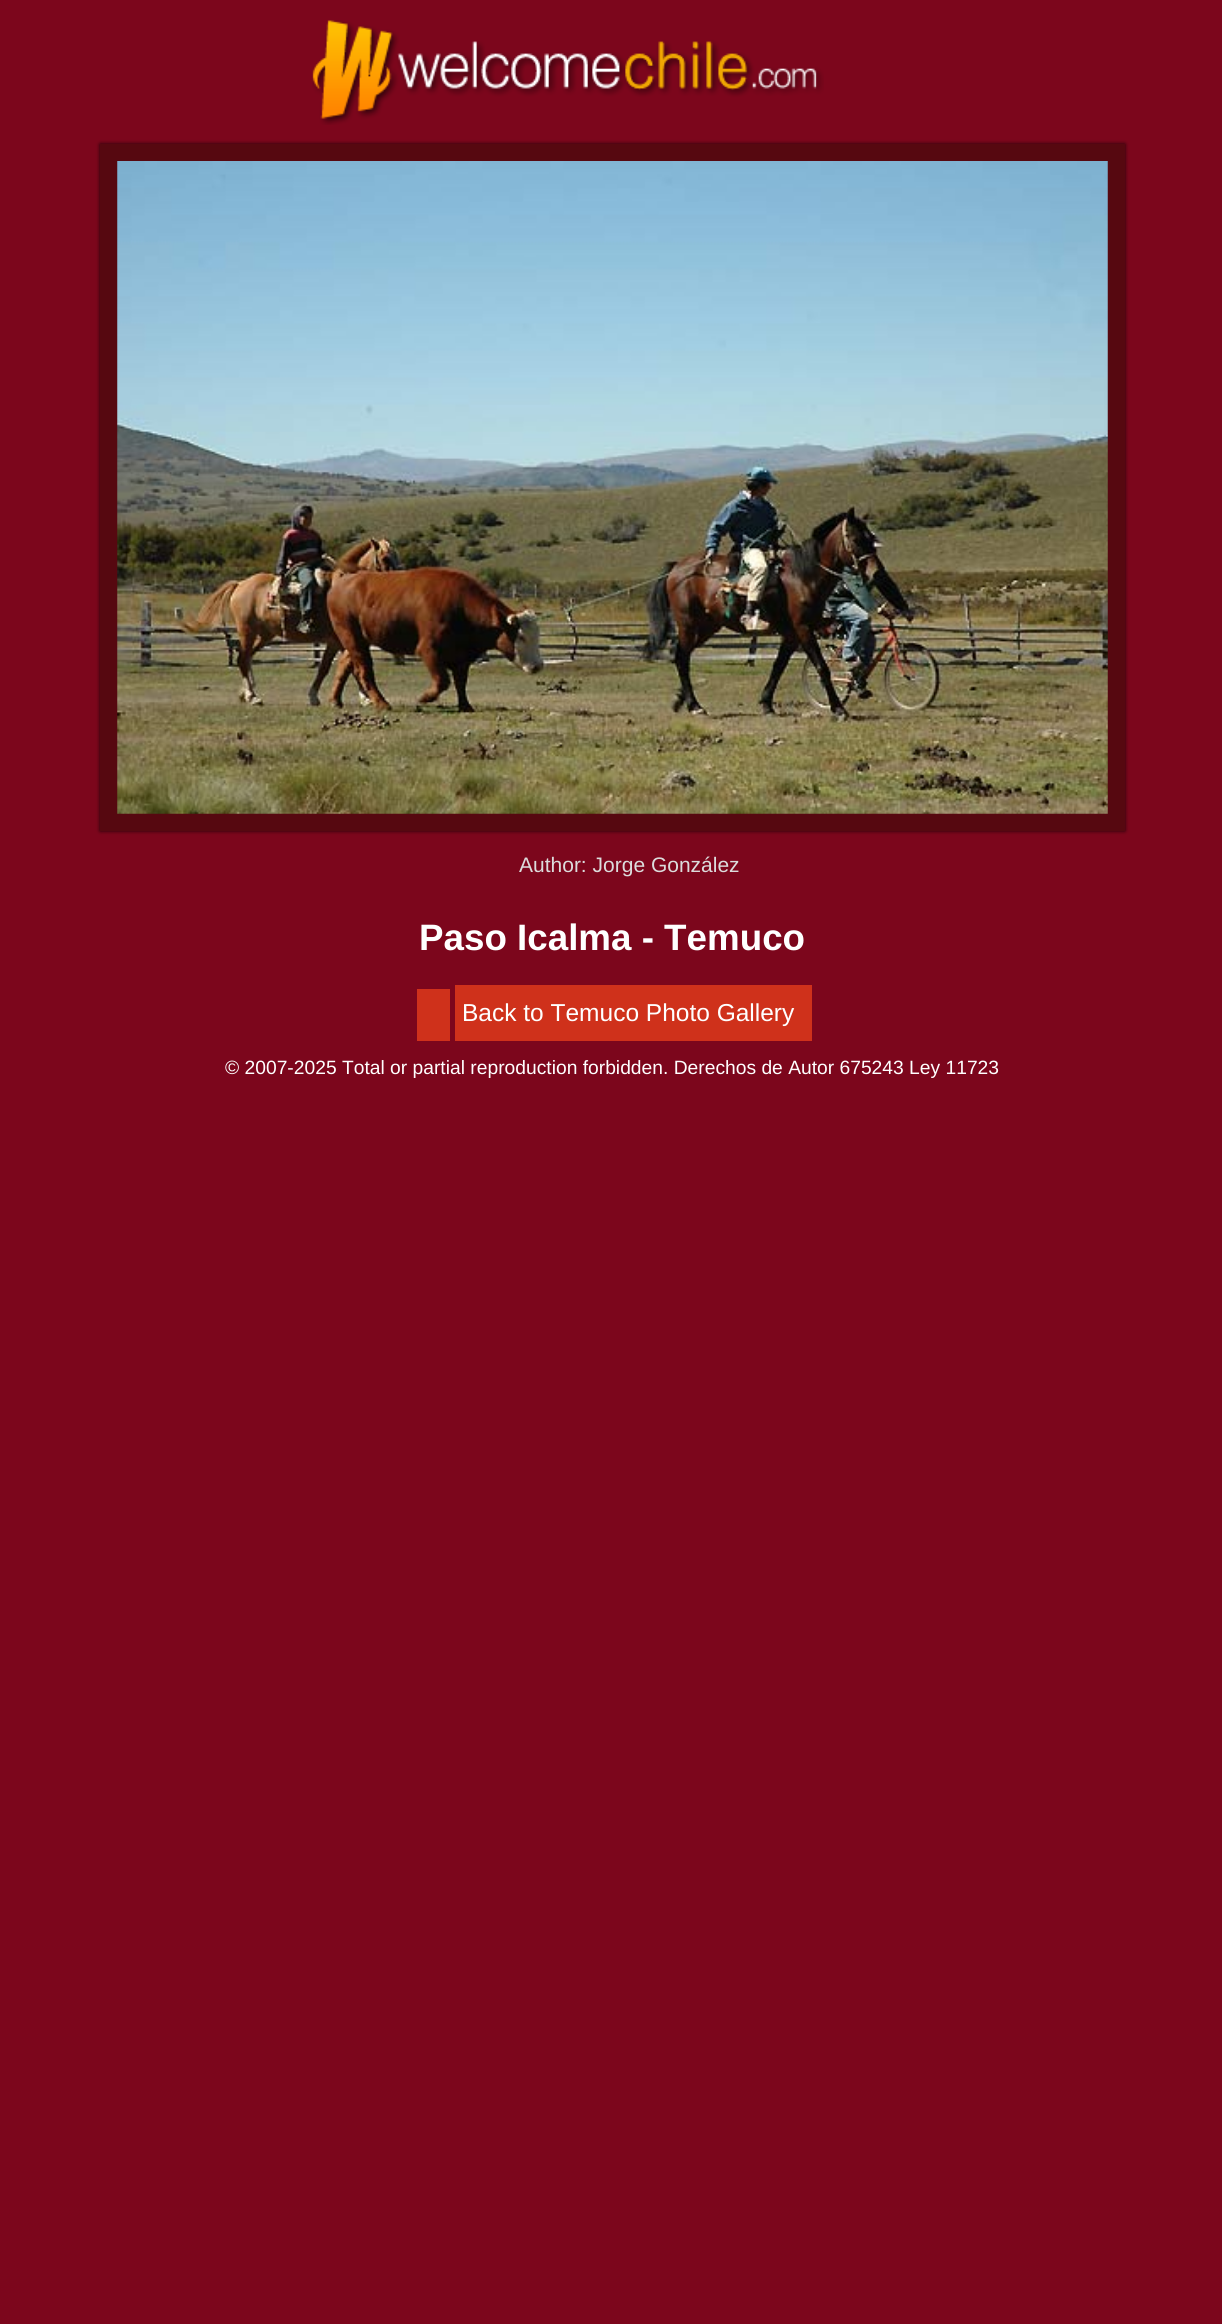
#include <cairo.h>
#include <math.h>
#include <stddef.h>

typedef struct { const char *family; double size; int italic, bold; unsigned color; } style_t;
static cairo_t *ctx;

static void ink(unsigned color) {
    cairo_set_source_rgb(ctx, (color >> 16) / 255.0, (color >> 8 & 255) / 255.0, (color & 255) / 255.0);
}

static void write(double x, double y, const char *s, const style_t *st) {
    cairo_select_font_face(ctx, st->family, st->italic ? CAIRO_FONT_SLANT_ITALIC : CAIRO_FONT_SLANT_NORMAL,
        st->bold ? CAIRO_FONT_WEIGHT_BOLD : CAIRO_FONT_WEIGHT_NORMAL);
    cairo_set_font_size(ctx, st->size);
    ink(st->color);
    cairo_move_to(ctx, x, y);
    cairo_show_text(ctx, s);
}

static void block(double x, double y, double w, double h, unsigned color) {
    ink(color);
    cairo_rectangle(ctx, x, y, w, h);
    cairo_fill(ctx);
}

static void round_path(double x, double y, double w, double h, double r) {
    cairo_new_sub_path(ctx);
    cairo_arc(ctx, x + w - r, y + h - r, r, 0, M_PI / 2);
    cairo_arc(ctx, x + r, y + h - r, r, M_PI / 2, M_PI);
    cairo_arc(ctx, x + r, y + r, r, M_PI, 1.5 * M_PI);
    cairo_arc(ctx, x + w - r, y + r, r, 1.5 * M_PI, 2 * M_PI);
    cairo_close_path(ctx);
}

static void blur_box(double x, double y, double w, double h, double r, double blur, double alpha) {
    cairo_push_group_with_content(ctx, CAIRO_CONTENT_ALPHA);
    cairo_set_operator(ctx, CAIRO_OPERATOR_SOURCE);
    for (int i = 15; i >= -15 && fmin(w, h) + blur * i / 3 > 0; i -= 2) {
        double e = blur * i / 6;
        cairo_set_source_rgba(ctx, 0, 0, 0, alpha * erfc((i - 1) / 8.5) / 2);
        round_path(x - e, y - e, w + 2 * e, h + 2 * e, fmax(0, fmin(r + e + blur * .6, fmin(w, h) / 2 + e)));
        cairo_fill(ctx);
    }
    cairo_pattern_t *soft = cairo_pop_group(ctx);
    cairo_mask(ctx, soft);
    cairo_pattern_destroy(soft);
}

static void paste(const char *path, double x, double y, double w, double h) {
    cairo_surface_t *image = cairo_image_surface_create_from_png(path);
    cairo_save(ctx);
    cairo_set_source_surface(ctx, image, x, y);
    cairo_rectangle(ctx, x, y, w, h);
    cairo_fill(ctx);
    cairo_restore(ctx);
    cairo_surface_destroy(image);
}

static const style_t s1 = {"Liberation Sans", 21, 0, 0, 0xdcdcdc};
static const style_t s2 = {"Liberation Sans", 36.75, 0, 1, 0xffffff};
static const style_t s3 = {"Liberation Sans", 24.5, 0, 0, 0xffffff};
static const style_t s4 = {"Liberation Sans", 19.25, 0, 0, 0xffffff};

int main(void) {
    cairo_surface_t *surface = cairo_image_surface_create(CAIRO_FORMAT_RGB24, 1222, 2324);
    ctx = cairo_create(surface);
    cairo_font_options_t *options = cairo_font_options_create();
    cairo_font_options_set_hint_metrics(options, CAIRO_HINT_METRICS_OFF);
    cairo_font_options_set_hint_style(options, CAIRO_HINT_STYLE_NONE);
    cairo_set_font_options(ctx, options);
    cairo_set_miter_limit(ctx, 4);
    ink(0x7c061c);
    cairo_paint(ctx);
    paste("pic1.png", 312, 20, 512, 105);
    ink(0x000000);
    blur_box(100, 144, 1025, 687, 0, 2, 0.8);
    cairo_rectangle(ctx, 109, 153, 1007, 669);
    ink(0x560810);
    cairo_set_line_width(ctx, 18);
    cairo_stroke(ctx);
    paste("pic2.png", 117, 161, 991, 653);
    write(519, 872, "Author: Jorge González", &s1);
    write(419, 950, "Paso Icalma - Temuco", &s2);
    block(455, 985, 357, 56, 0xcf311b);
    write(462, 1021, "Back to Temuco Photo Gallery", &s3);
    block(417, 989, 33, 52, 0xcf311b);
    write(225, 1074, "© 2007-2025 Total or partial reproduction forbidden. Derechos de Autor 675243 Ley 11723", &s4);
    cairo_surface_write_to_png(surface, "screenshot.png");
    cairo_font_options_destroy(options);
    cairo_destroy(ctx);
    cairo_surface_destroy(surface);
    return 0;
}
